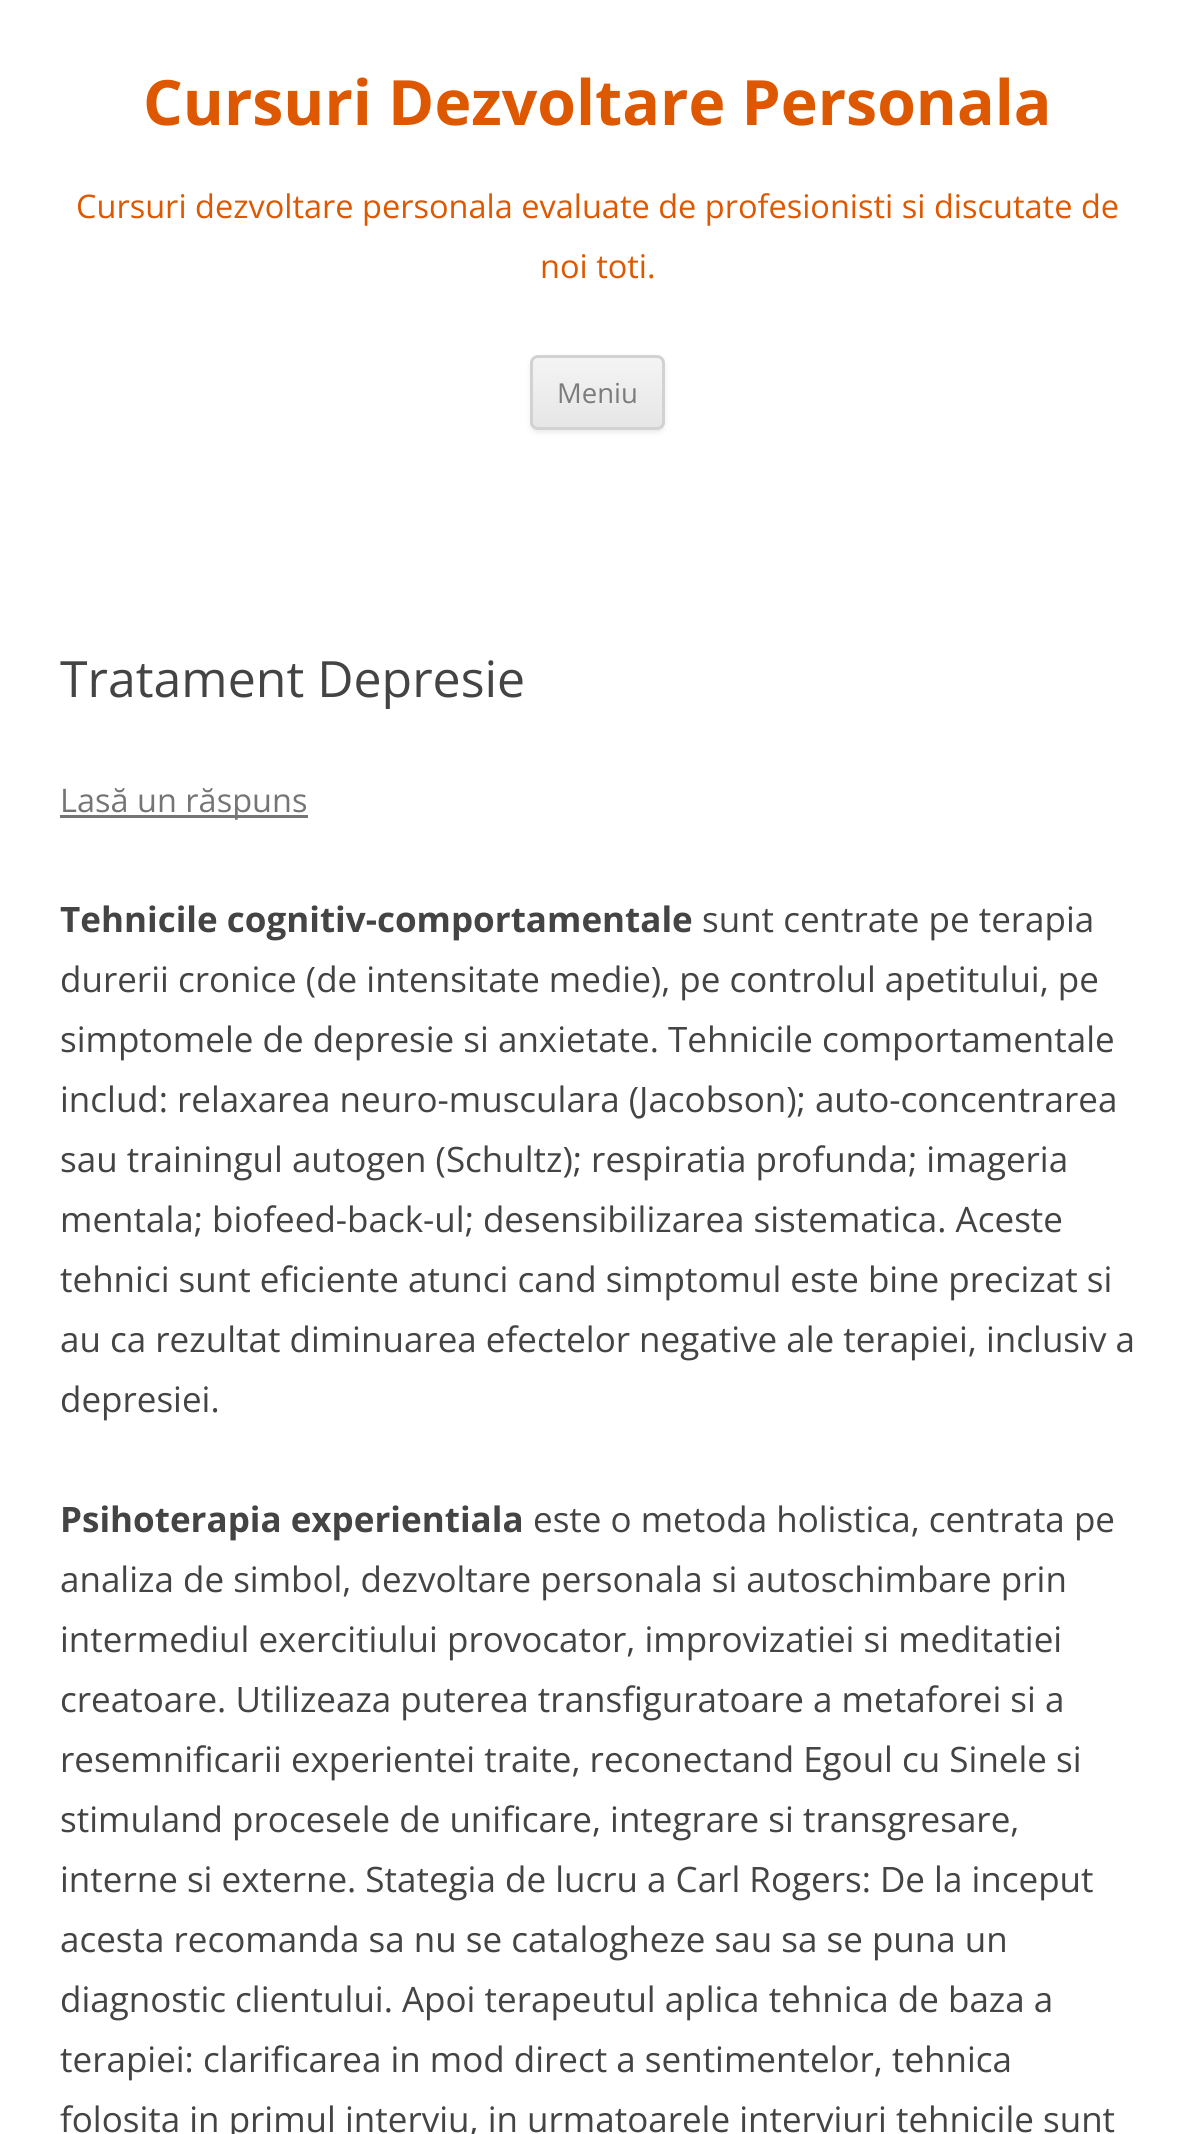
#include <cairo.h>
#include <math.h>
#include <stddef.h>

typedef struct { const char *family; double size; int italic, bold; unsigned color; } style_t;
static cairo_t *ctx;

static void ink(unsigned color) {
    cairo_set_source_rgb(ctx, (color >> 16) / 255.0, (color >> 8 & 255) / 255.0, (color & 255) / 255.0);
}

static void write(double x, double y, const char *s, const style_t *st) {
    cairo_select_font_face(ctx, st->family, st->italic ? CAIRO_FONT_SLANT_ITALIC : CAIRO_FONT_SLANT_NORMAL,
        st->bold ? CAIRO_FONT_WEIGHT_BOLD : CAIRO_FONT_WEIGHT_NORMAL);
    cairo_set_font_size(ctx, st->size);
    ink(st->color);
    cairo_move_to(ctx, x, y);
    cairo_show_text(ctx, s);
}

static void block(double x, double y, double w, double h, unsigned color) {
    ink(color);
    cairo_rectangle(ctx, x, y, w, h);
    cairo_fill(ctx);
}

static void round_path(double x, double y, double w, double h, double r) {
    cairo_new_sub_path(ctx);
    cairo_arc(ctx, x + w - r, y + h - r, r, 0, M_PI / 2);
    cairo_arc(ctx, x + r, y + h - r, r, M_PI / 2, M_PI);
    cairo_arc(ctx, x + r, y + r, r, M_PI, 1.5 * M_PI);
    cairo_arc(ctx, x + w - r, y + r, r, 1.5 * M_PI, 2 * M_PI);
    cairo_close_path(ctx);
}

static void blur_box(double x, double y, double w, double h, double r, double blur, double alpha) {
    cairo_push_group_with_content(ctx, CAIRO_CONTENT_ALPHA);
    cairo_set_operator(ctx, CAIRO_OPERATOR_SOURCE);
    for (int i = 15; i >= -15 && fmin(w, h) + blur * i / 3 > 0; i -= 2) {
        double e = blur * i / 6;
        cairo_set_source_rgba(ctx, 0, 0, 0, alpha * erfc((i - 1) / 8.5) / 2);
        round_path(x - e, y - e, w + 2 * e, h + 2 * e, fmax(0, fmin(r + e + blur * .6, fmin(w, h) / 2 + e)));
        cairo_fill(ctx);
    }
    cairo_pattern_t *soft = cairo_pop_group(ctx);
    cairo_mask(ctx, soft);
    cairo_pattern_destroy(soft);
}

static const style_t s1 = {"Open Sans", 62.5, 0, 1, 0xdd5800};
static const style_t s2 = {"Open Sans", 32.5, 0, 0, 0xdd5800};
static const style_t s3 = {"Open Sans", 27.5, 0, 0, 0x7c7c7c};
static const style_t s4 = {"Open Sans", 50, 0, 0, 0x444444};
static const style_t s5 = {"Open Sans", 32.5, 0, 0, 0x757575};
static const style_t s6 = {"Open Sans", 35, 0, 1, 0x444444};
static const style_t s7 = {"Open Sans", 35, 0, 0, 0x444444};

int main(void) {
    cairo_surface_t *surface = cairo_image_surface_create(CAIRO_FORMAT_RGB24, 1195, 2134);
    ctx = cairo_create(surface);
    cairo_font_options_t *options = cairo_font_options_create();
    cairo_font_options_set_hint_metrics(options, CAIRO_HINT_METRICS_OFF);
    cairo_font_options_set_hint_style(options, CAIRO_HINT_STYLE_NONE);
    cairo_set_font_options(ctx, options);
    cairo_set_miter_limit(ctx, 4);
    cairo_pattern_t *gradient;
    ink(0xffffff);
    cairo_paint(ctx);
    write(143, 125, "Cursuri Dezvoltare Personala", &s1);
    write(76, 218, "Cursuri dezvoltare personala evaluate de profesionisti si discutate de", &s2);
    write(540, 278, "noi toti.", &s2);
    ink(0x404040);
    blur_box(530, 358, 135, 75, 8, 2.5, 0.1);
    cairo_save(ctx);
    round_path(530, 355, 135, 75, 8);
    cairo_clip(ctx);
    gradient = cairo_pattern_create_linear(598, 358, 598, 428);
    cairo_pattern_add_color_stop_rgba(gradient, 0, 0.957, 0.957, 0.957, 1);
    cairo_pattern_add_color_stop_rgba(gradient, 1, 0.902, 0.902, 0.902, 1);
    cairo_set_source(ctx, gradient);
    cairo_pattern_destroy(gradient);
    cairo_rectangle(ctx, 530, 358, 135, 70);
    cairo_fill(ctx);
    cairo_restore(ctx);
    round_path(531.5, 356.5, 132, 72, 6.5);
    ink(0xd2d2d2);
    cairo_set_line_width(ctx, 3);
    cairo_stroke(ctx);
    write(557, 403, "Meniu", &s3);
    write(60, 697, "Tratament Depresie", &s4);
    block(60, 815, 248, 3, 0x757575);
    write(60, 812, "Lasă un răspuns", &s5);
    write(60, 932, "Tehnicile cognitiv-comportamentale", &s6);
    write(702, 932, "sunt centrate pe terapia", &s7);
    write(60, 992, "durerii cronice (de intensitate medie), pe controlul apetitului, pe", &s7);
    write(60, 1052, "simptomele de depresie si anxietate. Tehnicile comportamentale", &s7);
    write(60, 1112, "includ: relaxarea neuro-musculara (Jacobson); auto-concentrarea", &s7);
    write(60, 1172, "sau trainingul autogen (Schultz); respiratia profunda; imageria", &s7);
    write(60, 1232, "mentala; biofeed-back-ul; desensibilizarea sistematica. Aceste", &s7);
    write(60, 1292, "tehnici sunt eficiente atunci cand simptomul este bine precizat si", &s7);
    write(60, 1352, "au ca rezultat diminuarea efectelor negative ale terapiei, inclusiv a", &s7);
    write(60, 1412, "depresiei.", &s7);
    write(60, 1532, "Psihoterapia experientiala", &s6);
    write(533, 1532, "este o metoda holistica, centrata pe", &s7);
    write(60, 1592, "analiza de simbol, dezvoltare personala si autoschimbare prin", &s7);
    write(60, 1652, "intermediul exercitiului provocator, improvizatiei si meditatiei", &s7);
    write(60, 1712, "creatoare. Utilizeaza puterea transfiguratoare a metaforei si a", &s7);
    write(60, 1772, "resemnificarii experientei traite, reconectand Egoul cu Sinele si", &s7);
    write(60, 1832, "stimuland procesele de unificare, integrare si transgresare,", &s7);
    write(60, 1892, "interne si externe. Stategia de lucru a Carl Rogers: De la inceput", &s7);
    write(60, 1952, "acesta recomanda sa nu se catalogheze sau sa se puna un", &s7);
    write(60, 2012, "diagnostic clientului. Apoi terapeutul aplica tehnica de baza a", &s7);
    write(60, 2072, "terapiei: clarificarea in mod direct a sentimentelor, tehnica", &s7);
    write(60, 2132, "folosita in primul interviu, in urmatoarele interviuri tehnicile sunt", &s7);
    cairo_surface_write_to_png(surface, "screenshot.png");
    cairo_font_options_destroy(options);
    cairo_destroy(ctx);
    cairo_surface_destroy(surface);
    return 0;
}
